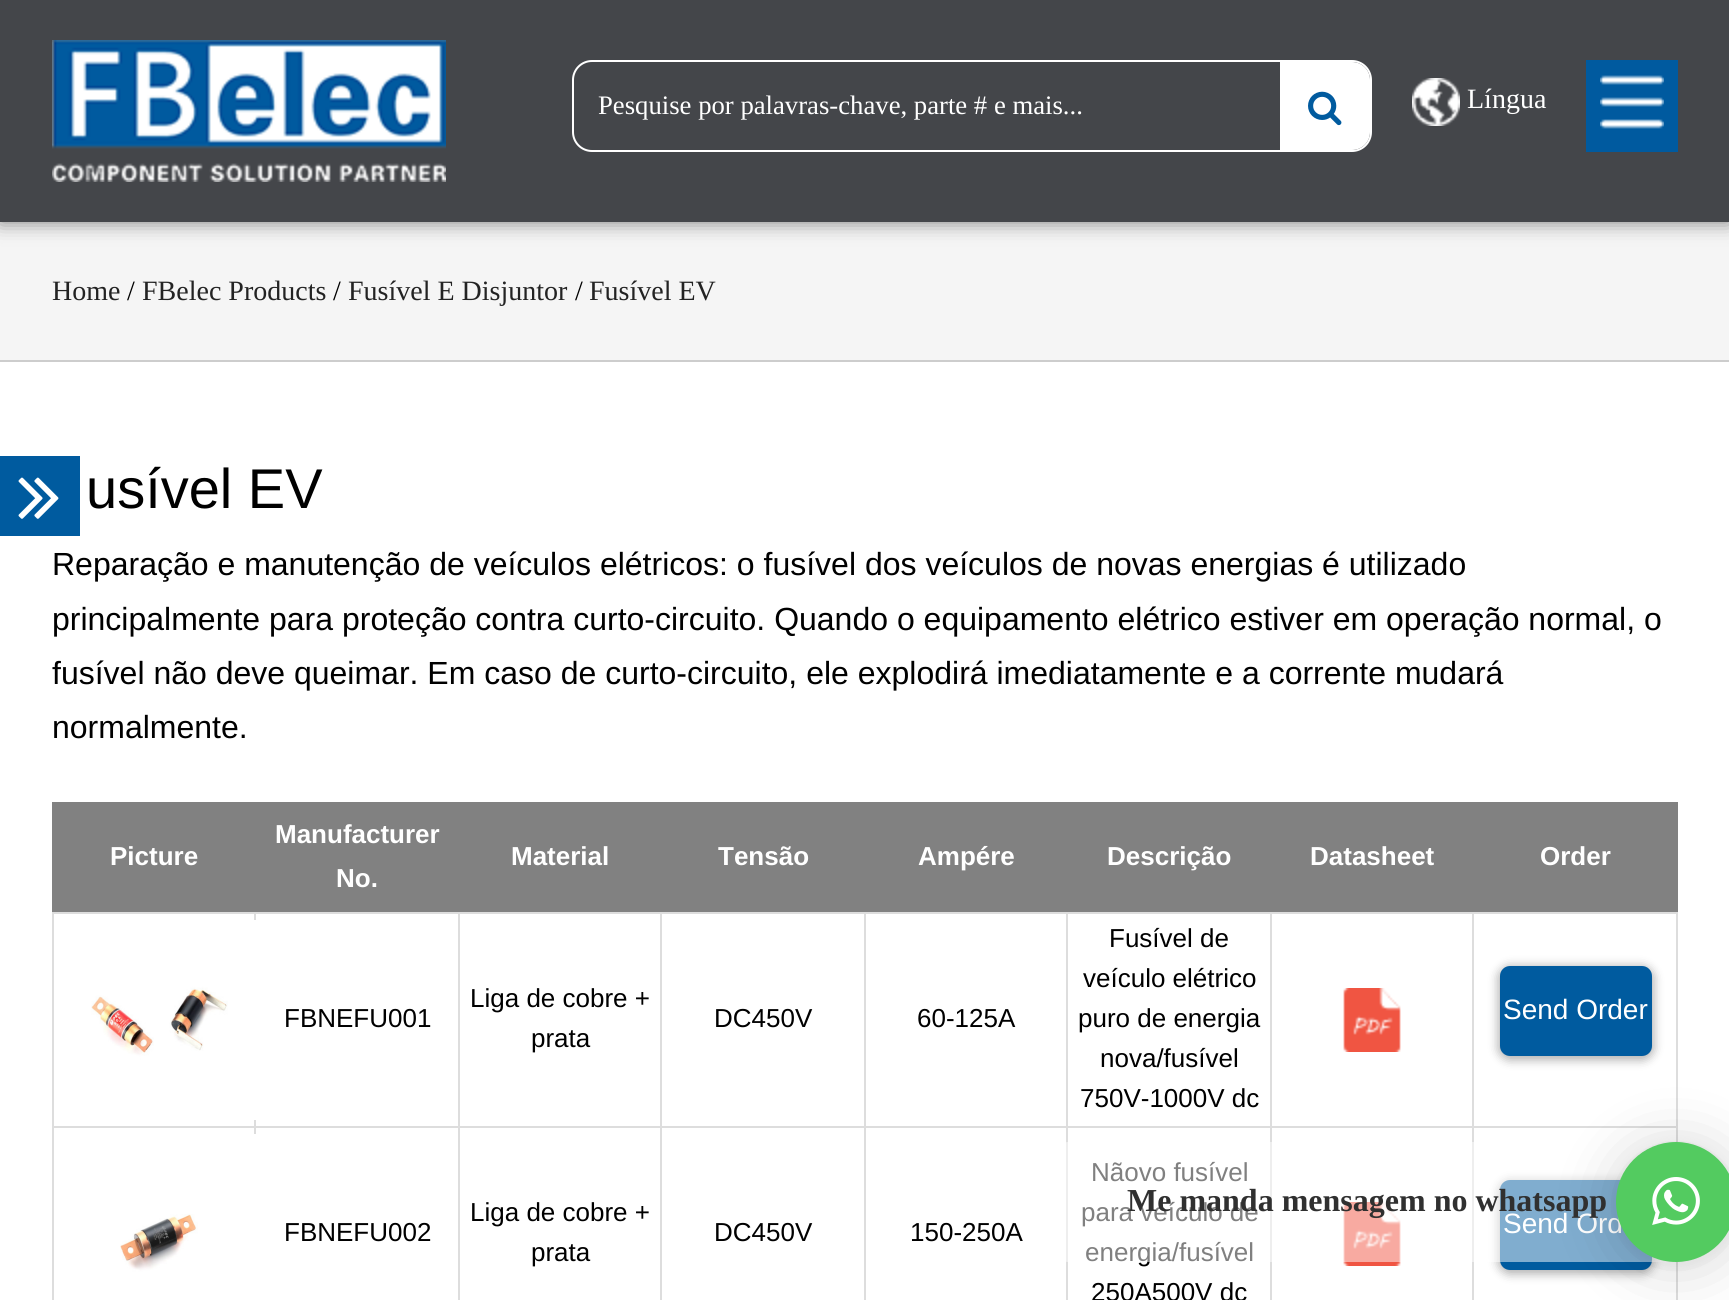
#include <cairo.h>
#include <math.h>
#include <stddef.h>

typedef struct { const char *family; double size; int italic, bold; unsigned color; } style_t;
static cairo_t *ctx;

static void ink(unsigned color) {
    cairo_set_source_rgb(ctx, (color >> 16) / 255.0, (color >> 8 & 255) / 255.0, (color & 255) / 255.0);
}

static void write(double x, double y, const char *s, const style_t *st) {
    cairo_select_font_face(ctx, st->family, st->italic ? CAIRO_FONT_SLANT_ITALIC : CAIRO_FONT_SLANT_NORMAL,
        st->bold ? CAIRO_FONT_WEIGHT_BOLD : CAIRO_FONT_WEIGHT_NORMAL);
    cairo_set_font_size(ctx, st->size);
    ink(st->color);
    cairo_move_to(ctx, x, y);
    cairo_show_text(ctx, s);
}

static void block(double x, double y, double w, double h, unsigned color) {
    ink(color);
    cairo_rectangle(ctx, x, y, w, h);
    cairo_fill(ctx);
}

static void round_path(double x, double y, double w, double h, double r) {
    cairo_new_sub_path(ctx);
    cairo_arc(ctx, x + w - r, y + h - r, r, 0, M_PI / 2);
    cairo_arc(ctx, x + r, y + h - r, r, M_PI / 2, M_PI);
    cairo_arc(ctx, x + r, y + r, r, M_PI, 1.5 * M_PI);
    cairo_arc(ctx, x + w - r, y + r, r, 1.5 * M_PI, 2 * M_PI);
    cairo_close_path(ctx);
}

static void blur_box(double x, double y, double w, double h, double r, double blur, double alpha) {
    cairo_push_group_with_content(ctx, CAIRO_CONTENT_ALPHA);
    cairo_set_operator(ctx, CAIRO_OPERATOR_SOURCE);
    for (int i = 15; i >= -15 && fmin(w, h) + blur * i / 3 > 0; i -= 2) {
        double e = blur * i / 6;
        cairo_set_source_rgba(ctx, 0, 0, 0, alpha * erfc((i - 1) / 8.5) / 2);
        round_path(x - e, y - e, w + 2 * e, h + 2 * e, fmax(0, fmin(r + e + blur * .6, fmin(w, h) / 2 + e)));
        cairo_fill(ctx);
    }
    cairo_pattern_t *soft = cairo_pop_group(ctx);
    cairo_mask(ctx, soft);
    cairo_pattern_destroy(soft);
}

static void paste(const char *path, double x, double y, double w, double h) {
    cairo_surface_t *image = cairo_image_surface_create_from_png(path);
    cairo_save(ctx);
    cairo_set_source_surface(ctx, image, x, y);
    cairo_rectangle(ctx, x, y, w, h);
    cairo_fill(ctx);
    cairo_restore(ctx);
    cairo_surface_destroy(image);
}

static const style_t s1 = {"Liberation Serif", 26.7, 0, 0, 0xffffff};
static const style_t s2 = {"Liberation Serif", 28, 0, 0, 0xffffff};
static const style_t s3 = {"Liberation Serif", 28, 0, 0, 0x232323};
static const style_t s4 = {"Liberation Serif", 28, 0, 0, 0x000000};
static const style_t s5 = {"Liberation Sans", 56, 0, 0, 0x000000};
static const style_t s6 = {"Liberation Sans", 32, 0, 0, 0x000000};
static const style_t s7 = {"Liberation Sans", 26, 0, 1, 0xffffff};
static const style_t s8 = {"Liberation Sans", 26, 0, 0, 0x000000};
static const style_t s9 = {"Liberation Sans", 28, 0, 0, 0xffffff};
static const style_t s10 = {"Liberation Serif", 32, 0, 1, 0x303030};

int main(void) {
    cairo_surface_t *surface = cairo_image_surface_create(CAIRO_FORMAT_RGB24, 1729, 1300);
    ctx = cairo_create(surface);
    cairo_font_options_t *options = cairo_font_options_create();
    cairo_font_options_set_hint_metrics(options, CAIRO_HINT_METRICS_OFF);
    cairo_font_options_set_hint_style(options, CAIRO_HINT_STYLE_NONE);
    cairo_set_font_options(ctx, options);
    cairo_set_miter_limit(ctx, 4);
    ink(0xffffff);
    cairo_paint(ctx);
    block(0, 222, 1729, 138, 0xf5f5f5);
    ink(0x000000);
    blur_box(0, 0, 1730, 222, 0, 10, 0.5);
    block(0, 0, 1729, 222, 0x44464a);
    paste("pic1.png", 52, 40, 394, 142);
    round_path(573, 61, 798, 90, 19);
    ink(0xffffff);
    cairo_stroke(ctx);
    write(598, 114, "Pesquise por palavras-chave, parte # e mais...", &s1);
    cairo_new_path(ctx);
    cairo_move_to(ctx, 1280, 62);
    cairo_line_to(ctx, 1352, 62);
    cairo_curve_to(ctx, 1362, 62, 1370, 70, 1370, 80);
    cairo_line_to(ctx, 1370, 132);
    cairo_curve_to(ctx, 1370, 142, 1362, 150, 1352, 150);
    cairo_line_to(ctx, 1280, 150);
    cairo_close_path(ctx);
    cairo_fill(ctx);
    paste("pic2.png", 1308, 91, 34, 35);
    paste("pic3.png", 1412, 78, 48, 48);
    write(1467, 108, "Língua", &s2);
    block(1586, 60, 92, 92, 0x005a9f);
    paste("pic4.png", 1600, 75, 64, 54);
    block(0, 360, 1729, 2, 0xcdcdcd);
    write(52, 300, "Home", &s3);
    write(127, 300, "/", &s4);
    write(142, 300, "FBelec Products", &s3);
    write(333, 300, "/", &s4);
    write(348, 300, "Fusível E Disjuntor", &s3);
    write(575, 300, "/", &s4);
    write(589, 300, "Fusível EV", &s3);
    block(0, 456, 80, 80, 0x005b9f);
    paste("pic5.png", 18, 477, 41, 42);
    write(86, 508, "usível EV", &s5);
    write(52, 575, "Reparação e manutenção de veículos elétricos: o fusível dos veículos de novas energias é utilizado", &s6);
    write(52, 630, "principalmente para proteção contra curto-circuito. Quando o equipamento elétrico estiver em operação normal, o", &s6);
    write(52, 684, "fusível não deve queimar. Em caso de curto-circuito, ele explodirá imediatamente e a corrente mudará", &s6);
    write(52, 738, "normalmente.", &s6);
    block(52, 802, 1626, 110, 0x818181);
    write(110, 865, "Picture", &s7);
    write(275, 843, "Manufacturer", &s7);
    write(336, 887, "No.", &s7);
    write(511, 865, "Material", &s7);
    write(718, 865, "Tensão", &s7);
    write(918, 865, "Ampére", &s7);
    write(1107, 865, "Descrição", &s7);
    write(1310, 865, "Datasheet", &s7);
    write(1540, 865, "Order", &s7);
    block(1472, 912, 206, 2, 0xdddddd);
    block(1472, 1126, 206, 2, 0xdddddd);
    block(1472, 1126, 2, 174, 0xdddddd);
    block(1270, 1126, 204, 2, 0xdddddd);
    block(1472, 912, 2, 216, 0xdddddd);
    block(1270, 912, 204, 2, 0xdddddd);
    block(1270, 1126, 2, 174, 0xdddddd);
    block(1066, 1126, 206, 2, 0xdddddd);
    block(1270, 912, 2, 216, 0xdddddd);
    block(1066, 912, 206, 2, 0xdddddd);
    block(1066, 1126, 2, 174, 0xdddddd);
    block(864, 1126, 204, 2, 0xdddddd);
    block(1066, 912, 2, 216, 0xdddddd);
    block(864, 912, 204, 2, 0xdddddd);
    block(864, 1126, 2, 174, 0xdddddd);
    block(660, 1126, 206, 2, 0xdddddd);
    block(864, 912, 2, 216, 0xdddddd);
    block(660, 912, 206, 2, 0xdddddd);
    block(660, 1126, 2, 174, 0xdddddd);
    block(458, 1126, 204, 2, 0xdddddd);
    block(660, 912, 2, 216, 0xdddddd);
    block(458, 912, 204, 2, 0xdddddd);
    block(458, 1126, 2, 174, 0xdddddd);
    block(254, 1126, 206, 2, 0xdddddd);
    block(458, 912, 2, 216, 0xdddddd);
    block(254, 912, 206, 2, 0xdddddd);
    block(254, 1126, 2, 8, 0xdddddd);
    block(52, 1126, 204, 2, 0xdddddd);
    block(254, 912, 2, 216, 0xdddddd);
    block(52, 912, 204, 2, 0xdddddd);
    block(52, 1126, 2, 174, 0xdddddd);
    block(52, 912, 2, 216, 0xdddddd);
    paste("pic6.png", 91, 920, 165, 200);
    write(284, 1027, "FBNEFU001", &s8);
    write(470, 1007, "Liga de cobre +", &s8);
    write(531, 1047, "prata", &s8);
    write(714, 1027, "DC450V", &s8);
    write(917, 1027, "60-125A", &s8);
    write(1109, 947, "Fusível de", &s8);
    write(1083, 987, "veículo elétrico", &s8);
    write(1078, 1027, "puro de energia", &s8);
    write(1100, 1067, "nova/fusível", &s8);
    write(1080, 1107, "750V-1000V dc", &s8);
    paste("pic7.png", 1343, 988, 58, 64);
    block(1676, 1126, 2, 174, 0xdddddd);
    block(1676, 912, 2, 216, 0xdddddd);
    ink(0x000000);
    blur_box(1498, 966, 156, 94, 12, 5, 0.31);
    ink(0x005b9f);
    round_path(1501, 967, 150, 88, 9);
    cairo_fill_preserve(ctx);
    cairo_stroke(ctx);
    write(1503, 1019, "Send Order", &s9);
    paste("pic8.png", 120, 1134, 136, 166);
    write(284, 1241, "FBNEFU002", &s8);
    write(470, 1221, "Liga de cobre +", &s8);
    write(531, 1261, "prata", &s8);
    write(714, 1241, "DC450V", &s8);
    write(910, 1241, "150-250A", &s8);
    write(1091, 1181, "Nãovo fusível", &s8);
    write(1081, 1221, "para veículo de", &s8);
    write(1085, 1261, "energia/fusível", &s8);
    write(1091, 1301, "250A500V dc", &s8);
    paste("pic7.png", 1343, 1202, 58, 64);
    ink(0x000000);
    blur_box(1498, 1180, 156, 94, 12, 5, 0.31);
    ink(0x005b9f);
    round_path(1501, 1181, 150, 88, 9);
    cairo_fill_preserve(ctx);
    cairo_stroke(ctx);
    write(1503, 1233, "Send Ord", &s9);
    cairo_set_source_rgba(ctx, 1, 1, 1, 0.5);
    round_path(1060, 1142, 616, 120, 8);
    cairo_fill(ctx);
    ink(0x000000);
    blur_box(1616, 1146, 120, 120, 60, 32, 0.16);
    blur_box(1616, 1144, 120, 120, 60, 6, 0.06);
    ink(0x53cb60);
    cairo_arc(ctx, 1676, 1202, 60, 0, 2 * M_PI);
    cairo_fill(ctx);
    write(1127, 1211, "Me manda mensagem no whatsapp", &s10);
    paste("pic9.png", 1652, 1177, 48, 48);
    cairo_surface_write_to_png(surface, "screenshot.png");
    cairo_font_options_destroy(options);
    cairo_destroy(ctx);
    cairo_surface_destroy(surface);
    return 0;
}
